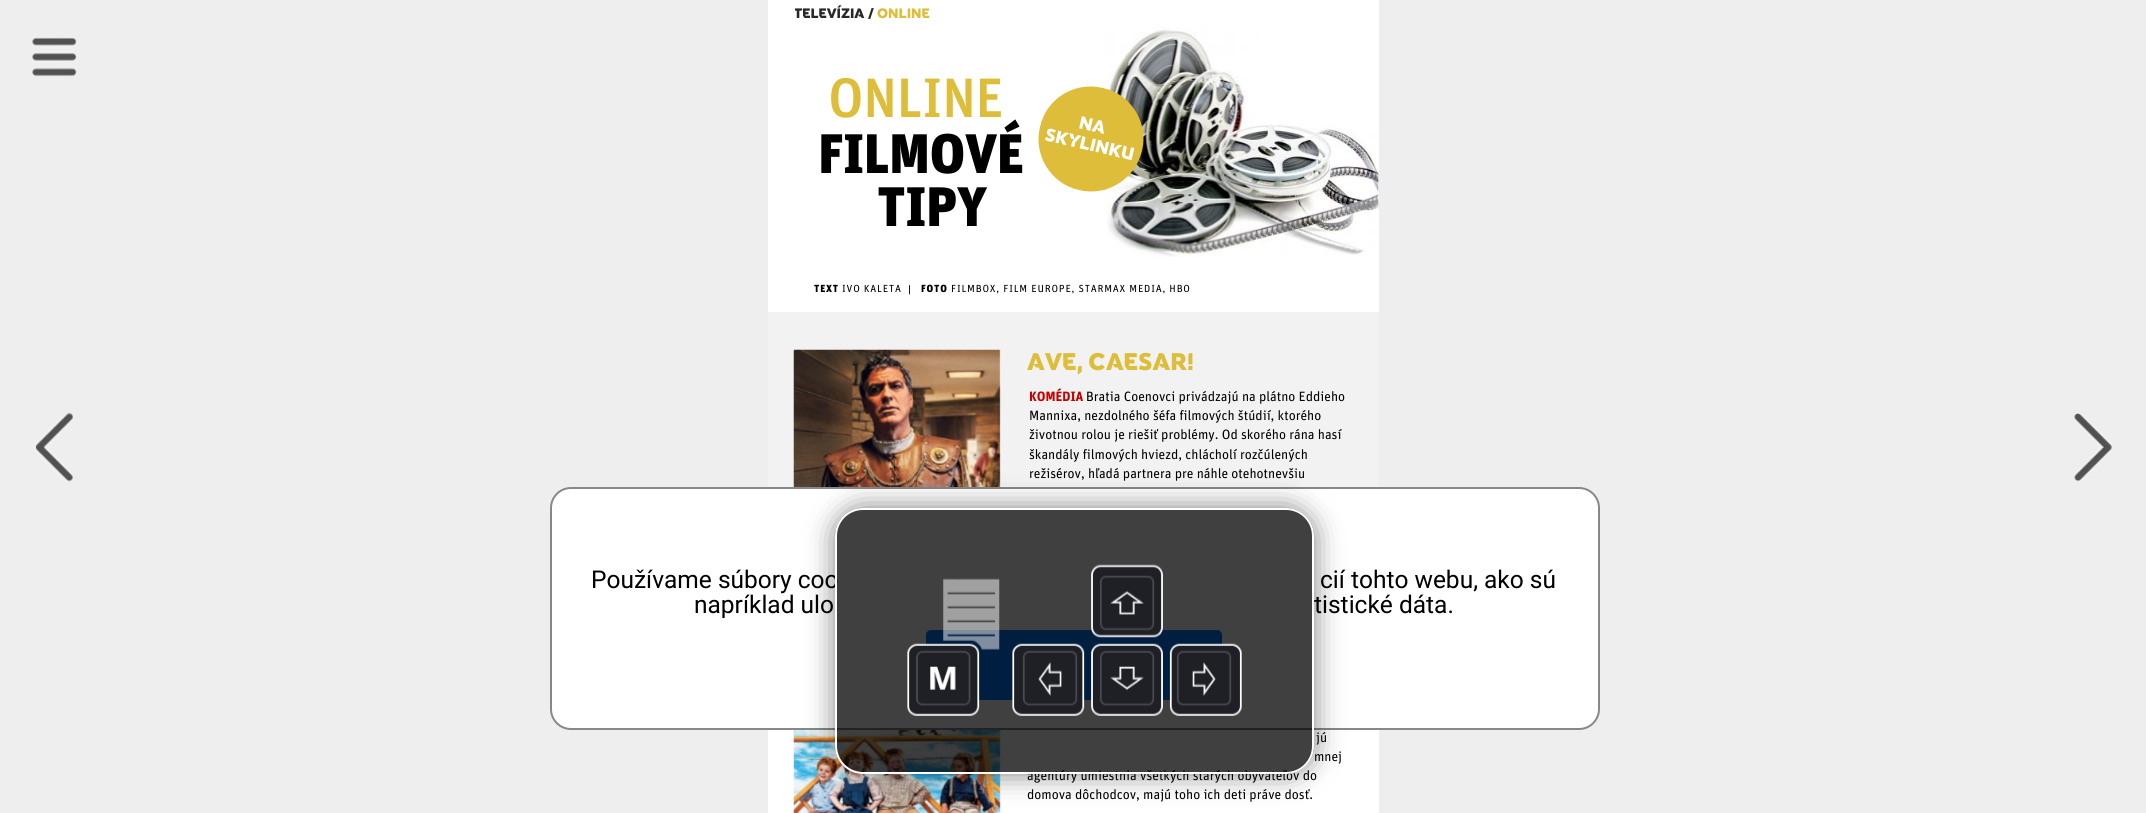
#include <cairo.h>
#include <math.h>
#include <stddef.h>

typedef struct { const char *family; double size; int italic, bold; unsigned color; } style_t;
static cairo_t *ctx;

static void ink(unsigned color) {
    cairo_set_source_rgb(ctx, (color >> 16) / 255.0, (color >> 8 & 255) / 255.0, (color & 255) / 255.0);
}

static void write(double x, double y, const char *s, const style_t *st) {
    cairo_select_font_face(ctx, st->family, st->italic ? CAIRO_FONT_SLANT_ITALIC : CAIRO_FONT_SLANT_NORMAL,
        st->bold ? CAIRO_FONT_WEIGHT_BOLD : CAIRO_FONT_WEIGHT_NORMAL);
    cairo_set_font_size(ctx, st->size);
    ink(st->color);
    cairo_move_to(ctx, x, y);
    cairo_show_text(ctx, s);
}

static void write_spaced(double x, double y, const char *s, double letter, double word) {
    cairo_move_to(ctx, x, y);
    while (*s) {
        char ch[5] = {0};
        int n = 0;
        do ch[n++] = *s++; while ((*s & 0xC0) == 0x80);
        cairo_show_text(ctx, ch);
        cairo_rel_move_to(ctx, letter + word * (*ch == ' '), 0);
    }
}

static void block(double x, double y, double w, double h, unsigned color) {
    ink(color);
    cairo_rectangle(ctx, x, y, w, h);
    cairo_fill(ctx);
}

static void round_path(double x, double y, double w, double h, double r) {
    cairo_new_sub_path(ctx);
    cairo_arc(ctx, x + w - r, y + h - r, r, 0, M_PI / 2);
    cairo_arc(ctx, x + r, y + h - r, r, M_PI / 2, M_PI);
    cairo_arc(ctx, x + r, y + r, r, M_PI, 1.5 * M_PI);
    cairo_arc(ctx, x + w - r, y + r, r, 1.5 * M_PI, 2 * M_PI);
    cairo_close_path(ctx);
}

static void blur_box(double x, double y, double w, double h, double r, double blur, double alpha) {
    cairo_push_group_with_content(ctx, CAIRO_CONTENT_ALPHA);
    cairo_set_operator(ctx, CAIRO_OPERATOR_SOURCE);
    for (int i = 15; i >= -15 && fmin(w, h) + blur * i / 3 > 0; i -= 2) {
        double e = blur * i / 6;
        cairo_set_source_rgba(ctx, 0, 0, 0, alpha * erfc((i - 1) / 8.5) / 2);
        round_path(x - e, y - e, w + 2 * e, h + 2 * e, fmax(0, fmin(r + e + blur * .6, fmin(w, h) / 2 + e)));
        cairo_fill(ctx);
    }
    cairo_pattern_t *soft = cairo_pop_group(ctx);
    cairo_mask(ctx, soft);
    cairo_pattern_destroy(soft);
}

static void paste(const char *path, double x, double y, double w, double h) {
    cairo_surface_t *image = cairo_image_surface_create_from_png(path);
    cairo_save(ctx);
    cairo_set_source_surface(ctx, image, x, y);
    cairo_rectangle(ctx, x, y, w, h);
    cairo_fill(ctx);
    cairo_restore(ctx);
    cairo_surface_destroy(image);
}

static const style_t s1 = {"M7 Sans", 13.5, 0, 0, 0x282828};
static const style_t s2 = {"M7 Sans", 13.5, 0, 0, 0xdebd3a};
static const style_t s3 = {"M7 Sans", 17.5, 0, 0, 0xffffff};
static const style_t s4 = {"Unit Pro", 13.5, 0, 1, 0xc60000};
static const style_t s5 = {"Unit Pro", 13.5, 0, 0, 0x000000};
static const style_t s6 = {"Roboto", 24.5, 0, 0, 0x000000};

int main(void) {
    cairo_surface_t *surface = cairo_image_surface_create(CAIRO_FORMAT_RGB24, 2146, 813);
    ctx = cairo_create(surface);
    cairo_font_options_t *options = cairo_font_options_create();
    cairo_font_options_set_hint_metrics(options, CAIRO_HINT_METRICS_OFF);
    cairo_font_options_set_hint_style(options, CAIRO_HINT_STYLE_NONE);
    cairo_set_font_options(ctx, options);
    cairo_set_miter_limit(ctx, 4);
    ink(0xeeeeee);
    cairo_paint(ctx);
    paste("pic1.png", 32, 37, 45, 40);
    block(768, 0, 611, 813, 0xffffff);
    cairo_save(ctx);
    cairo_rectangle(ctx, 795, 0, 208, 26);
    cairo_clip(ctx);
    write(794, 18, "TELEVÍZIA /", &s1);
    cairo_restore(ctx);
    write(877, 18, "ONLINE", &s2);
    cairo_select_font_face(ctx, "Unit Pro Medium", CAIRO_FONT_SLANT_NORMAL, CAIRO_FONT_WEIGHT_NORMAL);
    cairo_set_font_size(ctx, 55.5);
    write_spaced(828, 117, "ONLINE", -0.75, 0);
    cairo_select_font_face(ctx, "Unit Pro Black", CAIRO_FONT_SLANT_NORMAL, CAIRO_FONT_WEIGHT_NORMAL);
    ink(0x000000);
    write_spaced(818, 173, "FILMOVÉ", -0.75, 0);
    write_spaced(877, 226, "TIPY", -0.75, 0);
    paste("pic2.png", 1101, 27, 160, 183);
    ink(0xdebd3a);
    cairo_new_path(ctx);
    cairo_move_to(ctx, 1103, 88);
    cairo_curve_to(ctx, 1131, 94, 1149, 123, 1142, 151);
    cairo_curve_to(ctx, 1135, 179, 1107, 197, 1079, 190);
    cairo_curve_to(ctx, 1051, 184, 1033, 155, 1040, 127);
    cairo_curve_to(ctx, 1046, 99, 1074, 81, 1103, 88);
    cairo_close_path(ctx);
    cairo_fill(ctx);
    cairo_save(ctx);
    cairo_translate(ctx, 1078, 128);
    cairo_rotate(ctx, 13 * M_PI / 180);
    write(0, 0, "NA", &s3);
    cairo_restore(ctx);
    cairo_save(ctx);
    cairo_translate(ctx, 1044, 140);
    cairo_rotate(ctx, 13 * M_PI / 180);
    write(0, 0, "SKYLINKU", &s3);
    cairo_restore(ctx);
    paste("pic3.png", 1254, 124, 125, 86);
    paste("pic4.png", 1107, 203, 154, 54);
    paste("pic5.png", 1254, 203, 125, 52);
    cairo_select_font_face(ctx, "Unit Pro Black", CAIRO_FONT_SLANT_NORMAL, CAIRO_FONT_WEIGHT_NORMAL);
    cairo_set_font_size(ctx, 10.3);
    ink(0x000000);
    write_spaced(814, 292, "TEXT", 0.8, 0);
    cairo_select_font_face(ctx, "Unit Pro", CAIRO_FONT_SLANT_NORMAL, CAIRO_FONT_WEIGHT_NORMAL);
    write_spaced(842, 292, "IVO KALETA", 0.8, 0);
    cairo_select_font_face(ctx, "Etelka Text", CAIRO_FONT_SLANT_NORMAL, CAIRO_FONT_WEIGHT_NORMAL);
    cairo_set_font_size(ctx, 9);
    write_spaced(908, 292, "|", 0.8, 0);
    cairo_select_font_face(ctx, "Unit Pro Black", CAIRO_FONT_SLANT_NORMAL, CAIRO_FONT_WEIGHT_NORMAL);
    cairo_set_font_size(ctx, 10.3);
    write_spaced(921, 292, "FOTO", 0.8, 0);
    cairo_select_font_face(ctx, "Unit Pro", CAIRO_FONT_SLANT_NORMAL, CAIRO_FONT_WEIGHT_NORMAL);
    write_spaced(951, 292, "FILMBOX, FILM EUROPE, STARMAX MEDIA, HBO", 0.8, 0);
    block(768, 312, 611, 175, 0xf2f2f2);
    ink(0xffffff);
    round_path(795, 350, 206, 207, 1);
    cairo_fill(ctx);
    paste("pic6.png", 793, 349, 208, 138);
    cairo_select_font_face(ctx, "M7 Sans", CAIRO_FONT_SLANT_NORMAL, CAIRO_FONT_WEIGHT_NORMAL);
    cairo_set_font_size(ctx, 23.75);
    ink(0xdebd3a);
    write_spaced(1027, 370, "AVE, CAESAR!", 0, -1);
    write(1029, 401, "KOMÉDIA", &s4);
    write(1086, 401, "Bratia Coenovci privádzajú na plátno Eddieho", &s5);
    write(1029, 420, "Mannixa, nezdolného šéfa filmových štúdií, ktorého", &s5);
    write(1029, 439, "životnou rolou je riešiť problémy. Od skorého rána hasí", &s5);
    write(1029, 459, "škandály filmových hviezd, chlácholí rozčúlených", &s5);
    write(1029, 478, "režisérov, hľadá partnera pre náhle otehotnevšiu", &s5);
    paste("pic7.png", 793, 730, 208, 83);
    write(1316, 742, "jú", &s5);
    write(1314, 761, "mnej", &s5);
    write(1027, 780, "agentúry umiestnia všetkých starých obyvateľov do", &s5);
    write(1027, 799, "domova dôchodcov, majú toho ich deti práve dosť.", &s5);
    paste("pic8.png", 35, 412, 38, 70);
    paste("pic9.png", 2074, 413, 38, 69);
    ink(0xffffff);
    round_path(551, 488, 1048, 241, 20);
    cairo_fill_preserve(ctx);
    ink(0x888888);
    cairo_stroke(ctx);
    ink(0x007aff);
    round_path(926, 630, 296, 70, 5);
    cairo_fill(ctx);
    cairo_save(ctx);
    cairo_set_fill_rule(ctx, CAIRO_FILL_RULE_EVEN_ODD);
    cairo_new_path(ctx);
    cairo_move_to(ctx, 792, 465);
    cairo_line_to(ctx, 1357, 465);
    cairo_line_to(ctx, 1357, 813);
    cairo_line_to(ctx, 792, 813);
    cairo_close_path(ctx);
    cairo_move_to(ctx, 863, 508);
    cairo_line_to(ctx, 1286, 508);
    cairo_curve_to(ctx, 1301.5, 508, 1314, 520.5, 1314, 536);
    cairo_line_to(ctx, 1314, 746);
    cairo_curve_to(ctx, 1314, 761.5, 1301.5, 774, 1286, 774);
    cairo_line_to(ctx, 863, 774);
    cairo_curve_to(ctx, 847.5, 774, 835, 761.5, 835, 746);
    cairo_line_to(ctx, 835, 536);
    cairo_curve_to(ctx, 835, 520.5, 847.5, 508, 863, 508);
    cairo_close_path(ctx);
    cairo_clip(ctx);
    ink(0x000000);
    blur_box(835, 508, 479, 266, 28, 14, 0.5);
    cairo_restore(ctx);
    write(591, 588, "Používame súbory coo", &s6);
    write(1314, 613, "tistické dáta.", &s6);
    cairo_set_source_rgba(ctx, 0, 0, 0, 0.75);
    round_path(835, 508, 479, 266, 28);
    cairo_fill(ctx);
    paste("pic10.png", 907, 564, 335, 152);
    round_path(836, 509, 477, 264, 27);
    ink(0xffffff);
    cairo_stroke(ctx);
    write(1320, 588, "cií tohto webu, ako sú", &s6);
    write(694, 613, "napríklad ulo", &s6);
    cairo_surface_write_to_png(surface, "screenshot.png");
    cairo_font_options_destroy(options);
    cairo_destroy(ctx);
    cairo_surface_destroy(surface);
    return 0;
}
